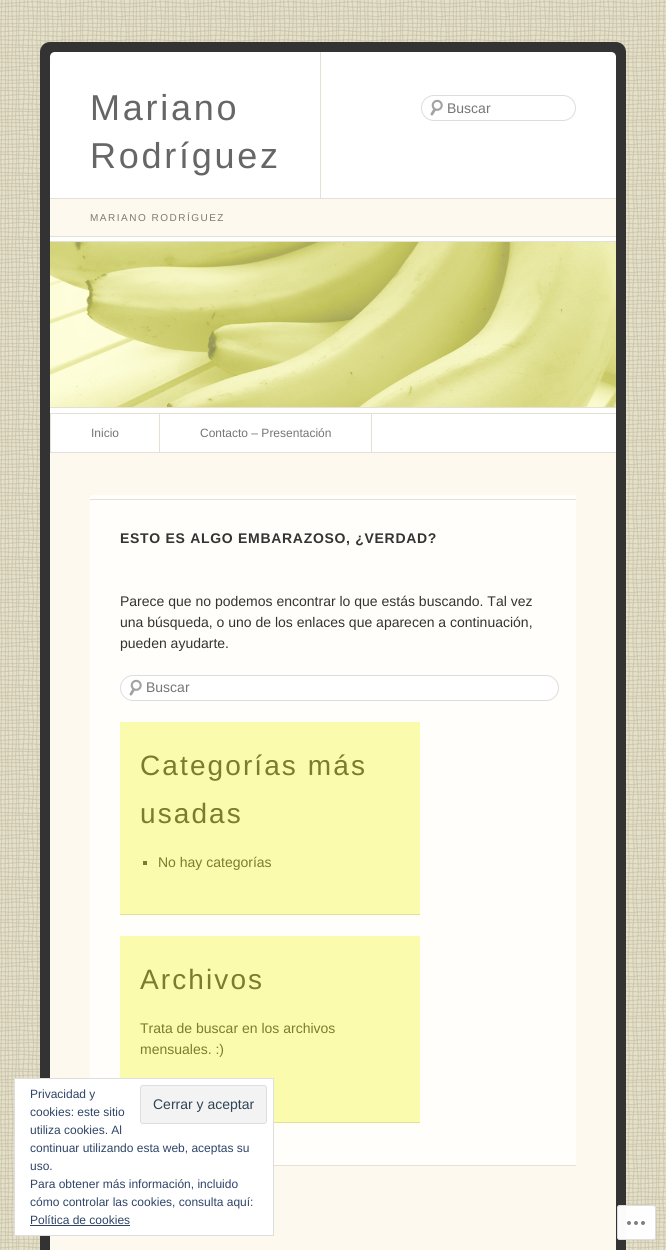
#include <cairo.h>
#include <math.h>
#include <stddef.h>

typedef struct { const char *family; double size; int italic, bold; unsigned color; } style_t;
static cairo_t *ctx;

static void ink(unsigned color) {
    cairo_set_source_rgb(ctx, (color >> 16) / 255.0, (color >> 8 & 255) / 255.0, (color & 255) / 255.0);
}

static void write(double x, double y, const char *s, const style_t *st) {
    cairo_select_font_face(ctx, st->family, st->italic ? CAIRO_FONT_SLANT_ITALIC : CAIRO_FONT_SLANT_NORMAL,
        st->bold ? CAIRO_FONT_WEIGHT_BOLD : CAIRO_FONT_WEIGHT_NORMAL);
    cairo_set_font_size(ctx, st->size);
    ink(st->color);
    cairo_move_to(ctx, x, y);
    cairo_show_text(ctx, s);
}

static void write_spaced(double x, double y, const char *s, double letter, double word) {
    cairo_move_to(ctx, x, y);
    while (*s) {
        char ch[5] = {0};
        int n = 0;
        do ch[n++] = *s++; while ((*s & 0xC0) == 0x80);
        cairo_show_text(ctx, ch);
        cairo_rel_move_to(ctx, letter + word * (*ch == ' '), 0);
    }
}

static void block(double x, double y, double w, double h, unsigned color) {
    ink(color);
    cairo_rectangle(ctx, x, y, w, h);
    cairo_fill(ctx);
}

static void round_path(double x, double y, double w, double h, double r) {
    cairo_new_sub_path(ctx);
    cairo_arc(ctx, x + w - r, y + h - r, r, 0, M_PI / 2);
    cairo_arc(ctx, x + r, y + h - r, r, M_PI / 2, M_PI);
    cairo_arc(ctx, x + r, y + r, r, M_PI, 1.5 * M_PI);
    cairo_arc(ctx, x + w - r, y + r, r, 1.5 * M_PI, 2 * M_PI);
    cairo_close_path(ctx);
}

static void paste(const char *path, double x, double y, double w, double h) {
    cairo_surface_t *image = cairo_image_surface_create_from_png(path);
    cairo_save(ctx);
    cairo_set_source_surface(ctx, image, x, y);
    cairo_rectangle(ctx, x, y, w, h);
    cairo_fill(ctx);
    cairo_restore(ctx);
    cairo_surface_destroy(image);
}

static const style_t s1 = {"Liberation Sans", 14, 0, 0, 0x757575};
static const style_t s2 = {"Liberation Sans", 12, 0, 0, 0x757575};
static const style_t s3 = {"Liberation Sans", 14, 0, 0, 0x333333};
static const style_t s4 = {"Liberation Sans", 14, 0, 0, 0x7c7c2e};
static const style_t s5 = {"Liberation Sans", 12, 0, 0, 0x2e4467};
static const style_t s6 = {"Liberation Sans", 14, 0, 0, 0x2e4453};

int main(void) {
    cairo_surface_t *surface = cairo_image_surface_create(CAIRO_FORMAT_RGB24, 666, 1250);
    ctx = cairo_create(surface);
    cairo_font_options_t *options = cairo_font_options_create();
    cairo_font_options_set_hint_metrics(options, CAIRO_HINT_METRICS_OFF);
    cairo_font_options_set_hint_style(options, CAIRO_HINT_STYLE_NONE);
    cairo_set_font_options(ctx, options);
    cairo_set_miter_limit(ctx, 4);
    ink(0xe7e2cc);
    cairo_paint(ctx);
    paste("pic1.png", 0, 0, 666, 1250);
    ink(0x333333);
    round_path(40, 42, 586, 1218, 10);
    cairo_fill(ctx);
    ink(0xffffff);
    cairo_new_path(ctx);
    cairo_move_to(ctx, 55, 52);
    cairo_line_to(ctx, 611, 52);
    cairo_curve_to(ctx, 614, 52, 616, 54, 616, 57);
    cairo_line_to(ctx, 616, 414);
    cairo_line_to(ctx, 50, 414);
    cairo_line_to(ctx, 50, 57);
    cairo_curve_to(ctx, 50, 54, 52, 52, 55, 52);
    cairo_close_path(ctx);
    cairo_fill(ctx);
    block(320, 52, 1, 146, 0xe4e0d5);
    cairo_select_font_face(ctx, "Liberation Sans", CAIRO_FONT_SLANT_NORMAL, CAIRO_FONT_WEIGHT_NORMAL);
    cairo_set_font_size(ctx, 36);
    ink(0x666666);
    write_spaced(90, 120, "Mariano", 2.75, 0);
    write_spaced(90, 168, "Rodríguez", 2.75, 0);
    block(50, 199, 566, 37, 0xfdf9ee);
    block(50, 198, 566, 1, 0xe4e0d5);
    block(50, 236, 566, 1, 0xe4e0d5);
    cairo_set_font_size(ctx, 10);
    ink(0x7e7a6f);
    write_spaced(90, 221, "MARIANO RODRÍGUEZ", 1.5, 0);
    paste("pic2.png", 430, 99, 13, 17);
    round_path(421.5, 95.5, 154, 25, 12.5);
    ink(0xdddddd);
    cairo_set_line_width(ctx, 1);
    cairo_stroke(ctx);
    write(447, 113, "Buscar", &s1);
    block(50, 241, 566, 1, 0xe4e0d5);
    paste("pic3.png", 50, 242, 566, 165);
    block(50, 407, 566, 1, 0xe4e0d5);
    block(50, 414, 566, 38, 0xffffff);
    block(50, 413, 566, 1, 0xe4e0d5);
    block(50, 414, 1, 38, 0xe4e0d5);
    block(159, 414, 1, 38, 0xe4e0d5);
    write(91, 437, "Inicio", &s2);
    block(371, 414, 1, 38, 0xe4e0d5);
    write(200, 437, "Contacto – Presentación", &s2);
    ink(0xfdf9ee);
    cairo_new_path(ctx);
    cairo_move_to(ctx, 50, 453);
    cairo_line_to(ctx, 616, 453);
    cairo_line_to(ctx, 616, 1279);
    cairo_curve_to(ctx, 616, 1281, 614, 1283, 611, 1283);
    cairo_line_to(ctx, 55, 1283);
    cairo_curve_to(ctx, 52, 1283, 50, 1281, 50, 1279);
    cairo_close_path(ctx);
    cairo_fill(ctx);
    block(50, 452, 566, 1, 0xe4e0d5);
    block(90, 495, 486, 670, 0xfffefa);
    block(274, 1165, 302, 1, 0xe4e0d5);
    block(90, 499, 486, 1, 0xe4e0d5);
    cairo_select_font_face(ctx, "Liberation Sans", CAIRO_FONT_SLANT_NORMAL, CAIRO_FONT_WEIGHT_BOLD);
    cairo_set_font_size(ctx, 14);
    ink(0x333333);
    write_spaced(120, 543, "ESTO ES ALGO EMBARAZOSO, ¿VERDAD?", 0.7, 0);
    write(120, 606, "Parece que no podemos encontrar lo que estás buscando. Tal vez", &s3);
    write(120, 627, "una búsqueda, o uno de los enlaces que aparecen a continuación,", &s3);
    write(120, 648, "pueden ayudarte.", &s3);
    ink(0xffffff);
    round_path(120, 675, 439, 26, 13);
    cairo_fill(ctx);
    paste("pic2.png", 129, 679, 13, 17);
    round_path(120.5, 675.5, 438, 25, 12.5);
    ink(0xdddddd);
    cairo_stroke(ctx);
    write(146, 692, "Buscar", &s1);
    block(120, 722, 300, 192, 0xfbfbad);
    block(120, 914, 300, 1, 0xe2e294);
    cairo_set_font_size(ctx, 28);
    ink(0x7c7c2e);
    write_spaced(140, 775, "Categorías más", 2.1, 0);
    write_spaced(140, 823, "usadas", 2.1, 0);
    block(143, 861, 4, 4, 0x7c7c2e);
    write(158, 867, "No hay categorías", &s4);
    block(120, 936, 300, 186, 0xfbfbad);
    block(274, 1122, 146, 1, 0xe2e294);
    cairo_set_font_size(ctx, 28);
    ink(0x7c7c2e);
    write_spaced(140, 989, "Archivos", 2.1, 0);
    write(140, 1033, "Trata de buscar en los archivos", &s4);
    write(140, 1054, "mensuales. :)", &s4);
    ink(0xffffff);
    cairo_rectangle(ctx, 14.5, 1078.5, 259, 157);
    cairo_fill_preserve(ctx);
    ink(0xdedede);
    cairo_stroke(ctx);
    write(30, 1098, "Privacidad y", &s5);
    write(30, 1116, "cookies: este sitio", &s5);
    ink(0xf3f3f3);
    round_path(140.5, 1085.5, 126, 38, 2.5);
    cairo_fill_preserve(ctx);
    ink(0xdedede);
    cairo_stroke(ctx);
    write(153, 1109, "Cerrar y aceptar", &s6);
    write(30, 1134, "utiliza cookies. Al", &s5);
    write(30, 1152, "continuar utilizando esta web, aceptas su", &s5);
    write(30, 1170, "uso.", &s5);
    write(30, 1188, "Para obtener más información, incluido", &s5);
    write(30, 1206, "cómo controlar las cookies, consulta aquí:", &s5);
    write(30, 1224, "Política de cookies", &s5);
    block(30, 1225, 100, 1, 0x2e4467);
    cairo_set_source_rgba(ctx, 1, 1, 1, 0.98);
    round_path(617, 1205, 39, 35, 3);
    cairo_fill(ctx);
    round_path(617.5, 1205.5, 38, 34, 2.5);
    cairo_set_source_rgba(ctx, 0.863, 0.863, 0.871, 0.98);
    cairo_stroke(ctx);
    paste("pic4.png", 627, 1221, 18, 4);
    cairo_surface_write_to_png(surface, "screenshot.png");
    cairo_font_options_destroy(options);
    cairo_destroy(ctx);
    cairo_surface_destroy(surface);
    return 0;
}
